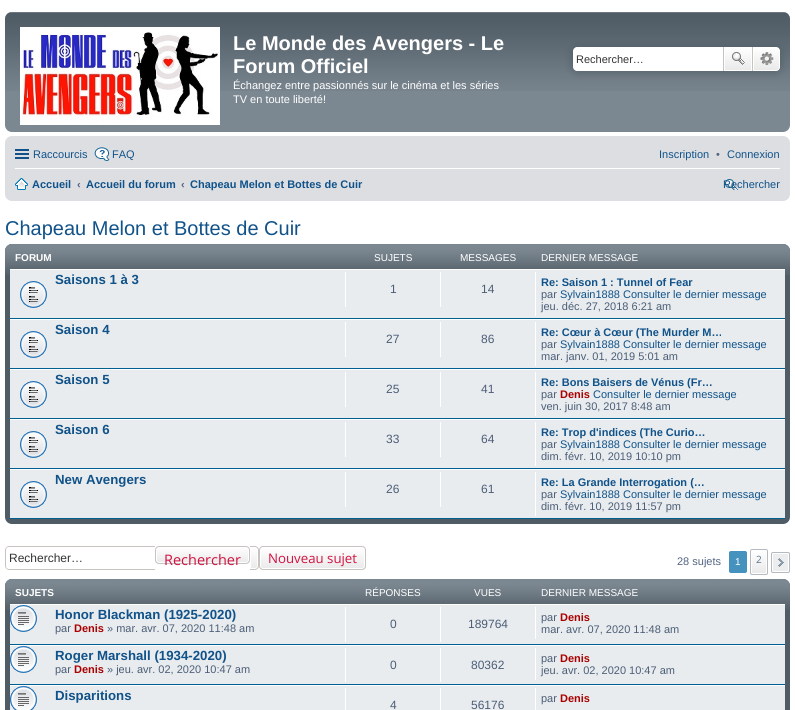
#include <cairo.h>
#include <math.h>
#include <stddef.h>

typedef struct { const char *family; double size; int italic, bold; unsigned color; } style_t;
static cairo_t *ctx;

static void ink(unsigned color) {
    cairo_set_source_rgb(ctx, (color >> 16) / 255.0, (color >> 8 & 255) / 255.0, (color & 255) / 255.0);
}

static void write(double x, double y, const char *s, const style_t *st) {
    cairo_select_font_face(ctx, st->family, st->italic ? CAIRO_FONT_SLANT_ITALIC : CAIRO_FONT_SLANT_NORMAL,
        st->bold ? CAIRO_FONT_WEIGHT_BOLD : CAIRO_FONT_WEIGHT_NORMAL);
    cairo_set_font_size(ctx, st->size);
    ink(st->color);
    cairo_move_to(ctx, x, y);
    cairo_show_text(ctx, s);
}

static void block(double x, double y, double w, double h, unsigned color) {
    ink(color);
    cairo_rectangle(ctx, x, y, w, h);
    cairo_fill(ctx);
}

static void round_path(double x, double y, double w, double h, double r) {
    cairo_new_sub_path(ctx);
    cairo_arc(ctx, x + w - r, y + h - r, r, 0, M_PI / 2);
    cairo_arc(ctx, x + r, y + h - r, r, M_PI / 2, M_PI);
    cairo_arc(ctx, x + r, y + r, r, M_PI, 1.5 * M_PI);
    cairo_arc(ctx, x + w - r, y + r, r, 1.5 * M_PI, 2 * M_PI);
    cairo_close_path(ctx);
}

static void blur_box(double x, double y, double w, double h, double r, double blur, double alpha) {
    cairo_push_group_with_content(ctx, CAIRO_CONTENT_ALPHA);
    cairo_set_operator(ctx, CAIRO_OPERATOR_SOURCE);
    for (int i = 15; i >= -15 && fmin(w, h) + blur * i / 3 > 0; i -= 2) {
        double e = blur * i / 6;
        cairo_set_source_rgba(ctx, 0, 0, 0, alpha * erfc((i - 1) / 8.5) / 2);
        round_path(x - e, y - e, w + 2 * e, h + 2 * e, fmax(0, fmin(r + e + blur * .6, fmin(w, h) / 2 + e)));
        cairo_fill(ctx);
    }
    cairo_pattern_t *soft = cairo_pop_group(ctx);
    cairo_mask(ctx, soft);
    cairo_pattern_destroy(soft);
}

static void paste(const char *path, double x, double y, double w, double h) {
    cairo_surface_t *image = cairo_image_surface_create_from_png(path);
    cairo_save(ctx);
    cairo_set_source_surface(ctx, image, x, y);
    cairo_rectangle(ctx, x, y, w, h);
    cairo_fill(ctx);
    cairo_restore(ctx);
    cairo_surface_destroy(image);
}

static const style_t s1 = {"Liberation Sans", 20, 0, 1, 0xffffff};
static const style_t s2 = {"Liberation Sans", 11, 0, 0, 0xffffff};
static const style_t s3 = {"Liberation Sans", 11, 0, 0, 0x333333};
static const style_t s4 = {"Liberation Sans", 11, 0, 0, 0x105289};
static const style_t s5 = {"Liberation Sans", 11, 0, 0, 0x536482};
static const style_t s6 = {"Liberation Sans", 11, 0, 1, 0x105289};
static const style_t s7 = {"Liberation Sans", 11, 0, 1, 0x536482};
static const style_t s8 = {"Liberation Sans", 20, 0, 0, 0x105289};
static const style_t s9 = {"Liberation Sans", 10, 0, 1, 0xffffff};
static const style_t s10 = {"Liberation Sans", 10, 0, 0, 0xffffff};
static const style_t s11 = {"Liberation Sans", 13.25, 0, 1, 0x105289};
static const style_t s12 = {"Liberation Sans", 12, 0, 0, 0x4c5d77};
static const style_t s13 = {"Liberation Sans", 11, 0, 0, 0x4c5d77};
static const style_t s14 = {"Liberation Sans", 11, 0, 1, 0xaa0000};
static const style_t s15 = {"Liberation Sans", 12, 0, 0, 0x333333};
static const style_t s16 = {"Open Sans", 14.5, 0, 0, 0xd31141};
static const style_t s17 = {"Open Sans", 13.25, 0, 0, 0xd31141};
static const style_t s18 = {"Open Sans", 10, 0, 0, 0x5c758c};

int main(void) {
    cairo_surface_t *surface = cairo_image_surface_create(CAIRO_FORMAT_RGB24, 795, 710);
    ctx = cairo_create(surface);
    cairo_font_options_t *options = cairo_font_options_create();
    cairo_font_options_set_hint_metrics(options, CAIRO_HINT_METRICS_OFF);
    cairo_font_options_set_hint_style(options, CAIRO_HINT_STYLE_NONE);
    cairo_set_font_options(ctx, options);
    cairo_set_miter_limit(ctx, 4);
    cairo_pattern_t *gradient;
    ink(0xffffff);
    cairo_paint(ctx);
    ink(0x7c8891);
    round_path(5, 12, 785, 120, 7);
    cairo_fill(ctx);
    paste("pic1.png", 5, 12, 785, 79);
    paste("pic2.png", 20, 27, 200, 98);
    write(233, 50, "Le Monde des Avengers - Le", &s1);
    write(233, 73, "Forum Officiel", &s1);
    write(233, 89, "Échangez entre passionnés sur le cinéma et les séries", &s2);
    write(233, 103, "TV en toute liberté!", &s2);
    ink(0x505c65);
    blur_box(573, 47, 207, 24, 4, 5, 1);
    ink(0xffffff);
    cairo_new_path(ctx);
    cairo_move_to(ctx, 577, 47);
    cairo_line_to(ctx, 723, 47);
    cairo_line_to(ctx, 723, 71);
    cairo_line_to(ctx, 577, 71);
    cairo_curve_to(ctx, 575, 71, 573, 69, 573, 67);
    cairo_line_to(ctx, 573, 51);
    cairo_curve_to(ctx, 573, 49, 575, 47, 577, 47);
    cairo_close_path(ctx);
    cairo_fill(ctx);
    write(576, 63, "Rechercher…", &s3);
    gradient = cairo_pattern_create_linear(738, 47, 738, 71);
    cairo_pattern_add_color_stop_rgba(gradient, 0, 1, 1, 1, 1);
    cairo_pattern_add_color_stop_rgba(gradient, 1, 0.914, 0.914, 0.914, 1);
    cairo_set_source(ctx, gradient);
    cairo_pattern_destroy(gradient);
    cairo_rectangle(ctx, 725, 48, 26, 22);
    cairo_fill(ctx);
    cairo_rectangle(ctx, 724.5, 47.5, 27, 23);
    ink(0xffffff);
    cairo_set_line_width(ctx, 1);
    cairo_stroke(ctx);
    block(752, 47, 1, 24, 0xc7c3bf);
    block(723, 47, 1, 24, 0xc7c3bf);
    paste("pic3.png", 732, 52, 13, 13);
    gradient = cairo_pattern_create_linear(767, 47, 767, 71);
    cairo_pattern_add_color_stop_rgba(gradient, 0, 1, 1, 1, 1);
    cairo_pattern_add_color_stop_rgba(gradient, 1, 0.914, 0.914, 0.914, 1);
    cairo_set_source(ctx, gradient);
    cairo_pattern_destroy(gradient);
    cairo_new_path(ctx);
    cairo_move_to(ctx, 753.5, 47.5);
    cairo_line_to(ctx, 776, 47.5);
    cairo_curve_to(ctx, 778, 47.5, 779.5, 49, 779.5, 51);
    cairo_line_to(ctx, 779.5, 67);
    cairo_curve_to(ctx, 779.5, 69, 778, 70.5, 776, 70.5);
    cairo_line_to(ctx, 753.5, 70.5);
    cairo_close_path(ctx);
    cairo_fill_preserve(ctx);
    ink(0xffffff);
    cairo_stroke(ctx);
    paste("pic4.png", 760, 52, 14, 13);
    ink(0xdcdee2);
    round_path(5, 136, 785, 65, 7);
    cairo_fill(ctx);
    block(15, 149, 14, 2, 0x105289);
    block(15, 153, 14, 2, 0x105289);
    block(15, 157, 14, 2, 0x105289);
    write(33, 158, "Raccourcis", &s4);
    paste("pic5.png", 94, 147, 16, 14);
    write(112, 158, "FAQ", &s4);
    write(659, 158, "Inscription", &s4);
    write(716, 158, "•", &s5);
    write(727, 158, "Connexion", &s4);
    block(15, 168, 765, 1, 0xffffff);
    paste("pic6.png", 15, 178, 13, 12);
    write(32, 188, "Accueil", &s6);
    write(77, 188, "‹", &s7);
    write(86, 188, "Accueil du forum", &s6);
    write(181, 188, "‹", &s7);
    write(190, 188, "Chapeau Melon et Bottes de Cuir", &s6);
    paste("pic7.png", 724, 179, 14, 11);
    write(723, 188, "Rechercher", &s4);
    write(5, 235, "Chapeau Melon et Bottes de Cuir", &s8);
    ink(0x505c65);
    round_path(5, 244, 785, 280, 7);
    cairo_fill(ctx);
    paste("pic8.png", 5, 244, 785, 31);
    write(15, 261, "FORUM", &s9);
    write(374, 261, "SUJETS", &s10);
    write(460, 261, "MESSAGES", &s10);
    write(541, 261, "DERNIER MESSAGE", &s10);
    block(10, 270, 775, 48, 0xe8ecee);
    block(10, 269, 775, 1, 0xffffff);
    block(10, 318, 775, 1, 0x00608f);
    paste("pic9.png", 20, 281, 27, 27);
    write(55, 284, "Saisons 1 à 3", &s11);
    block(345, 272, 1, 35, 0xffffff);
    write(390, 293, "1", &s12);
    block(440, 272, 1, 35, 0xffffff);
    write(481, 293, "14", &s12);
    block(535, 272, 1, 44, 0xffffff);
    write(541, 286, "Re: Saison 1 : Tunnel of Fear", &s6);
    write(541, 298, "par", &s13);
    write(560, 298, "Sylvain1888 Consulter le dernier message", &s4);
    write(541, 310, "jeu. déc. 27, 2018 6:21 am", &s13);
    block(10, 320, 775, 48, 0xe8ecee);
    block(10, 319, 775, 1, 0xffffff);
    block(10, 368, 775, 1, 0x00608f);
    paste("pic9.png", 20, 331, 27, 27);
    write(55, 334, "Saison 4", &s11);
    block(345, 322, 1, 35, 0xffffff);
    write(386, 343, "27", &s12);
    block(440, 322, 1, 35, 0xffffff);
    write(481, 343, "86", &s12);
    block(535, 322, 1, 44, 0xffffff);
    write(541, 336, "Re: Cœur à Cœur (The Murder M…", &s6);
    write(541, 348, "par", &s13);
    write(560, 348, "Sylvain1888 Consulter le dernier message", &s4);
    write(541, 360, "mar. janv. 01, 2019 5:01 am", &s13);
    block(10, 370, 775, 48, 0xe8ecee);
    block(10, 369, 775, 1, 0xffffff);
    block(10, 418, 775, 1, 0x00608f);
    paste("pic9.png", 20, 381, 27, 27);
    write(55, 384, "Saison 5", &s11);
    block(345, 372, 1, 35, 0xffffff);
    write(386, 393, "25", &s12);
    block(440, 372, 1, 35, 0xffffff);
    write(481, 393, "41", &s12);
    block(535, 372, 1, 44, 0xffffff);
    write(541, 386, "Re: Bons Baisers de Vénus (Fr…", &s6);
    write(541, 398, "par", &s13);
    write(560, 398, "Denis", &s14);
    write(593, 398, "Consulter le dernier message", &s4);
    write(541, 410, "ven. juin 30, 2017 8:48 am", &s13);
    block(10, 420, 775, 48, 0xe8ecee);
    block(10, 419, 775, 1, 0xffffff);
    block(10, 468, 775, 1, 0x00608f);
    paste("pic9.png", 20, 431, 27, 27);
    write(55, 434, "Saison 6", &s11);
    block(345, 422, 1, 35, 0xffffff);
    write(386, 443, "33", &s12);
    block(440, 422, 1, 35, 0xffffff);
    write(481, 443, "64", &s12);
    block(535, 422, 1, 44, 0xffffff);
    write(541, 436, "Re: Trop d'indices (The Curio…", &s6);
    write(541, 448, "par", &s13);
    write(560, 448, "Sylvain1888 Consulter le dernier message", &s4);
    write(541, 460, "dim. févr. 10, 2019 10:10 pm", &s13);
    block(10, 470, 775, 48, 0xe8ecee);
    block(10, 469, 775, 1, 0xffffff);
    block(10, 518, 775, 1, 0x00608f);
    paste("pic9.png", 20, 481, 27, 27);
    write(55, 484, "New Avengers", &s11);
    block(345, 472, 1, 35, 0xffffff);
    write(386, 493, "26", &s12);
    block(440, 472, 1, 35, 0xffffff);
    write(481, 493, "61", &s12);
    block(535, 472, 1, 44, 0xffffff);
    write(541, 486, "Re: La Grande Interrogation (…", &s6);
    write(541, 498, "par", &s13);
    write(560, 498, "Sylvain1888 Consulter le dernier message", &s4);
    write(541, 510, "dim. févr. 10, 2019 11:57 pm", &s13);
    ink(0xc7c3bf);
    cairo_set_fill_rule(ctx, CAIRO_FILL_RULE_EVEN_ODD);
    cairo_new_path(ctx);
    cairo_move_to(ctx, 9, 546);
    cairo_line_to(ctx, 155, 546);
    cairo_line_to(ctx, 155, 570);
    cairo_line_to(ctx, 9, 570);
    cairo_curve_to(ctx, 7, 570, 5, 568, 5, 566);
    cairo_line_to(ctx, 5, 550);
    cairo_curve_to(ctx, 5, 548, 7, 546, 9, 546);
    cairo_close_path(ctx);
    cairo_move_to(ctx, 9, 547);
    cairo_line_to(ctx, 155, 547);
    cairo_line_to(ctx, 155, 569);
    cairo_line_to(ctx, 9, 569);
    cairo_curve_to(ctx, 7, 569, 6, 568, 6, 566);
    cairo_line_to(ctx, 6, 550);
    cairo_curve_to(ctx, 6, 548, 7, 547, 9, 547);
    cairo_close_path(ctx);
    cairo_fill(ctx);
    write(9, 562, "Rechercher…", &s15);
    cairo_save(ctx);
    cairo_set_fill_rule(ctx, CAIRO_FILL_RULE_WINDING);
    round_path(155, 546, 95, 18, 4);
    cairo_clip(ctx);
    gradient = cairo_pattern_create_linear(203, 547, 203, 563);
    cairo_pattern_add_color_stop_rgba(gradient, 0, 1, 1, 1, 1);
    cairo_pattern_add_color_stop_rgba(gradient, 1, 0.914, 0.914, 0.914, 1);
    cairo_set_source(ctx, gradient);
    cairo_pattern_destroy(gradient);
    cairo_rectangle(ctx, 155, 547, 95, 16);
    cairo_fill(ctx);
    cairo_restore(ctx);
    round_path(156.5, 547.5, 92, 15, 2.5);
    ink(0xffffff);
    cairo_stroke(ctx);
    round_path(155.5, 546.5, 94, 17, 3.5);
    ink(0xc7c3bf);
    cairo_stroke(ctx);
    write(164, 565, "Rechercher", &s16);
    gradient = cairo_pattern_create_linear(254, 547, 254, 569);
    cairo_pattern_add_color_stop_rgba(gradient, 0, 1, 1, 1, 1);
    cairo_pattern_add_color_stop_rgba(gradient, 1, 0.914, 0.914, 0.914, 1);
    cairo_set_source(ctx, gradient);
    cairo_pattern_destroy(gradient);
    cairo_new_path(ctx);
    cairo_move_to(ctx, 250.5, 547.5);
    cairo_line_to(ctx, 255, 547.5);
    cairo_curve_to(ctx, 256.5, 547.5, 257.5, 548.5, 257.5, 550);
    cairo_line_to(ctx, 257.5, 566);
    cairo_curve_to(ctx, 257.5, 567.5, 256.5, 568.5, 255, 568.5);
    cairo_line_to(ctx, 250.5, 568.5);
    cairo_close_path(ctx);
    cairo_fill_preserve(ctx);
    ink(0xffffff);
    cairo_stroke(ctx);
    ink(0xc7c3bf);
    cairo_new_path(ctx);
    cairo_move_to(ctx, 250, 546);
    cairo_line_to(ctx, 255, 546);
    cairo_curve_to(ctx, 257, 546, 259, 548, 259, 550);
    cairo_line_to(ctx, 259, 566);
    cairo_curve_to(ctx, 259, 568, 257, 570, 255, 570);
    cairo_line_to(ctx, 250, 570);
    cairo_close_path(ctx);
    cairo_move_to(ctx, 250, 547);
    cairo_line_to(ctx, 255, 547);
    cairo_curve_to(ctx, 256.5, 547, 258, 548.5, 258, 550);
    cairo_line_to(ctx, 258, 566);
    cairo_curve_to(ctx, 258, 567.5, 256.5, 569, 255, 569);
    cairo_line_to(ctx, 250, 569);
    cairo_close_path(ctx);
    cairo_fill(ctx);
    cairo_save(ctx);
    cairo_set_fill_rule(ctx, CAIRO_FILL_RULE_WINDING);
    round_path(259, 546, 107, 24, 4);
    cairo_clip(ctx);
    gradient = cairo_pattern_create_linear(313, 547, 313, 569);
    cairo_pattern_add_color_stop_rgba(gradient, 0, 1, 1, 1, 1);
    cairo_pattern_add_color_stop_rgba(gradient, 1, 0.914, 0.914, 0.914, 1);
    cairo_set_source(ctx, gradient);
    cairo_pattern_destroy(gradient);
    cairo_rectangle(ctx, 259, 547, 107, 22);
    cairo_fill(ctx);
    cairo_restore(ctx);
    round_path(260.5, 547.5, 104, 21, 2.5);
    ink(0xffffff);
    cairo_stroke(ctx);
    round_path(259.5, 546.5, 106, 23, 3.5);
    ink(0xc7c3bf);
    cairo_stroke(ctx);
    write(268, 563, "Nouveau sujet", &s17);
    write(677, 565, "28 sujets", &s5);
    ink(0x4692bf);
    round_path(729.5, 551.5, 17, 21, 1.5);
    cairo_fill_preserve(ctx);
    cairo_stroke(ctx);
    write(735, 565, "1", &s10);
    cairo_save(ctx);
    cairo_set_fill_rule(ctx, CAIRO_FILL_RULE_WINDING);
    round_path(750, 549, 18, 26, 2);
    cairo_clip(ctx);
    gradient = cairo_pattern_create_linear(759, 550, 759, 574);
    cairo_pattern_add_color_stop_rgba(gradient, 0, 1, 1, 1, 1);
    cairo_pattern_add_color_stop_rgba(gradient, 1, 0.914, 0.914, 0.914, 1);
    cairo_set_source(ctx, gradient);
    cairo_pattern_destroy(gradient);
    cairo_rectangle(ctx, 750, 550, 18, 24);
    cairo_fill(ctx);
    cairo_restore(ctx);
    round_path(751.5, 550.5, 15, 23, 0.5);
    cairo_stroke(ctx);
    round_path(750.5, 549.5, 17, 25, 1.5);
    ink(0xb4bac0);
    cairo_stroke(ctx);
    write(756, 563, "2", &s18);
    ink(0xecedee);
    round_path(771, 552, 19, 21, 2);
    cairo_fill(ctx);
    paste("pic10.png", 778, 558, 6, 9);
    round_path(772.5, 553.5, 16, 18, 0.5);
    ink(0xffffff);
    cairo_stroke(ctx);
    round_path(771.5, 552.5, 18, 20, 1.5);
    ink(0xb4bac0);
    cairo_stroke(ctx);
    ink(0x505c65);
    round_path(5, 579, 785, 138, 7);
    cairo_fill(ctx);
    paste("pic8.png", 5, 579, 785, 31);
    write(15, 596, "SUJETS", &s9);
    write(365, 596, "RÉPONSES", &s10);
    write(474, 596, "VUES", &s10);
    write(541, 596, "DERNIER MESSAGE", &s10);
    block(10, 605, 775, 39, 0xe8ecee);
    block(10, 604, 775, 1, 0xffffff);
    block(10, 644, 775, 1, 0x00608f);
    paste("pic11.png", 10, 605, 27, 27);
    write(55, 619, "Honor Blackman (1925-2020)", &s11);
    write(55, 632, "par", &s13);
    write(74, 632, "Denis", &s14);
    write(107, 632, "» mar. avr. 07, 2020 11:48 am", &s13);
    block(345, 607, 1, 35, 0xffffff);
    write(390, 628, "0", &s12);
    block(440, 607, 1, 35, 0xffffff);
    write(468, 628, "189764", &s12);
    block(535, 607, 1, 32, 0xffffff);
    write(541, 621, "par", &s13);
    write(560, 621, "Denis", &s14);
    write(541, 633, "mar. avr. 07, 2020 11:48 am", &s13);
    block(10, 646, 775, 38, 0xe8ecee);
    block(10, 645, 775, 1, 0xffffff);
    block(10, 684, 775, 1, 0x00608f);
    paste("pic11.png", 10, 646, 27, 27);
    write(55, 660, "Roger Marshall (1934-2020)", &s11);
    write(55, 673, "par", &s13);
    write(74, 673, "Denis", &s14);
    write(107, 673, "» jeu. avr. 02, 2020 10:47 am", &s13);
    block(345, 648, 1, 34, 0xffffff);
    write(390, 669, "0", &s12);
    block(440, 648, 1, 34, 0xffffff);
    write(471, 669, "80362", &s12);
    block(535, 648, 1, 32, 0xffffff);
    write(541, 662, "par", &s13);
    write(560, 662, "Denis", &s14);
    write(541, 674, "jeu. avr. 02, 2020 10:47 am", &s13);
    block(10, 686, 775, 24, 0xe8ecee);
    block(10, 685, 775, 1, 0xffffff);
    paste("pic12.png", 10, 686, 27, 24);
    write(55, 700, "Disparitions", &s11);
    block(345, 688, 1, 22, 0xffffff);
    write(390, 709, "4", &s12);
    block(440, 688, 1, 22, 0xffffff);
    write(471, 709, "56176", &s12);
    block(535, 688, 1, 22, 0xffffff);
    write(541, 702, "par", &s13);
    write(560, 702, "Denis", &s14);
    cairo_surface_write_to_png(surface, "screenshot.png");
    cairo_font_options_destroy(options);
    cairo_destroy(ctx);
    cairo_surface_destroy(surface);
    return 0;
}
